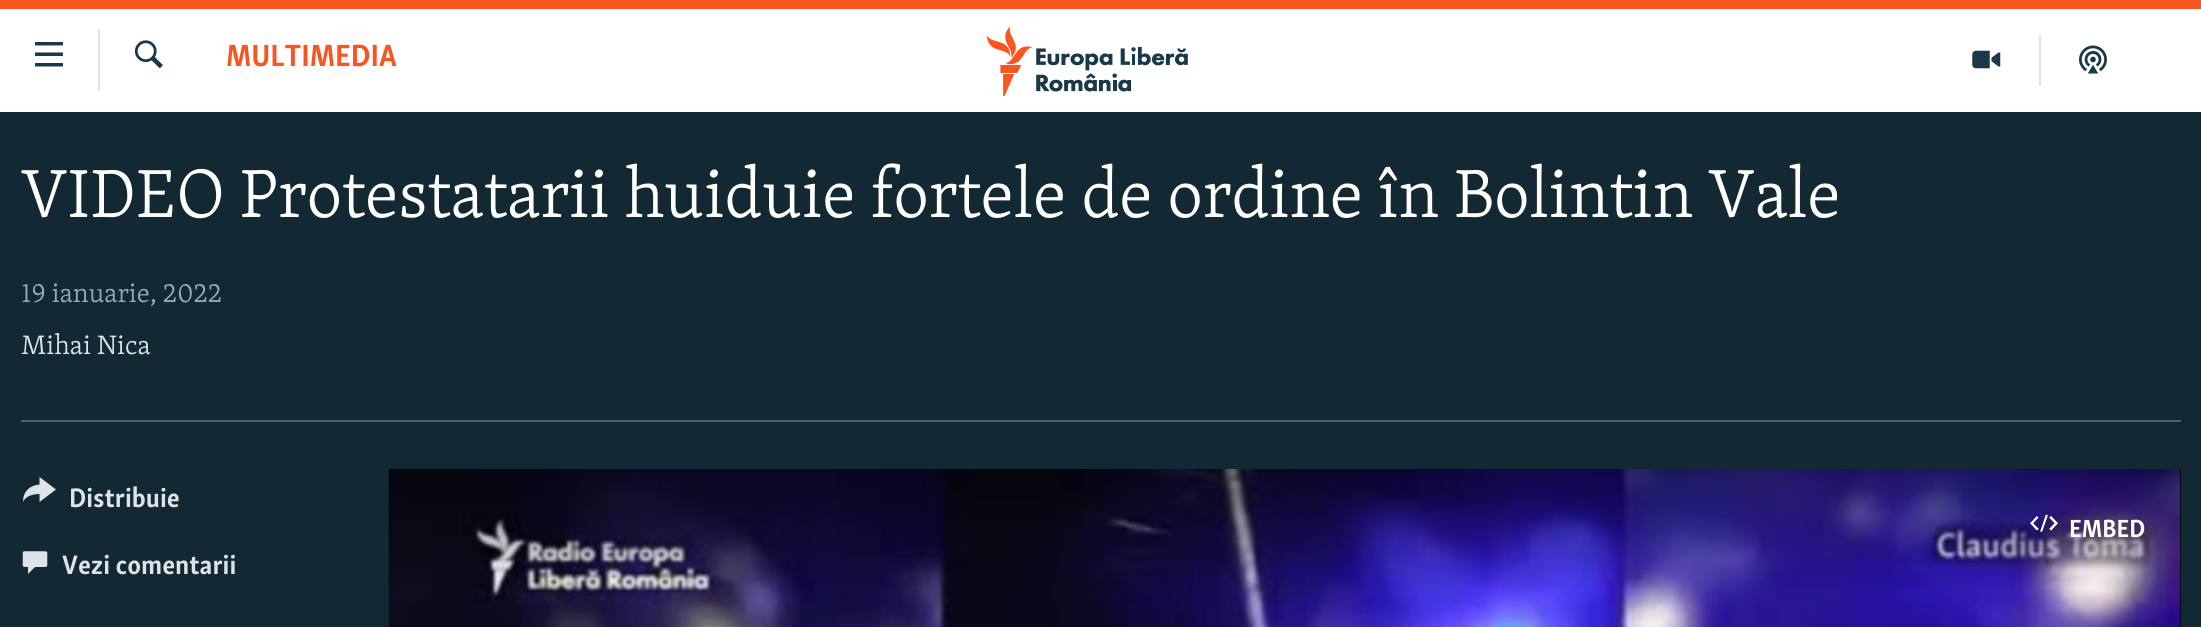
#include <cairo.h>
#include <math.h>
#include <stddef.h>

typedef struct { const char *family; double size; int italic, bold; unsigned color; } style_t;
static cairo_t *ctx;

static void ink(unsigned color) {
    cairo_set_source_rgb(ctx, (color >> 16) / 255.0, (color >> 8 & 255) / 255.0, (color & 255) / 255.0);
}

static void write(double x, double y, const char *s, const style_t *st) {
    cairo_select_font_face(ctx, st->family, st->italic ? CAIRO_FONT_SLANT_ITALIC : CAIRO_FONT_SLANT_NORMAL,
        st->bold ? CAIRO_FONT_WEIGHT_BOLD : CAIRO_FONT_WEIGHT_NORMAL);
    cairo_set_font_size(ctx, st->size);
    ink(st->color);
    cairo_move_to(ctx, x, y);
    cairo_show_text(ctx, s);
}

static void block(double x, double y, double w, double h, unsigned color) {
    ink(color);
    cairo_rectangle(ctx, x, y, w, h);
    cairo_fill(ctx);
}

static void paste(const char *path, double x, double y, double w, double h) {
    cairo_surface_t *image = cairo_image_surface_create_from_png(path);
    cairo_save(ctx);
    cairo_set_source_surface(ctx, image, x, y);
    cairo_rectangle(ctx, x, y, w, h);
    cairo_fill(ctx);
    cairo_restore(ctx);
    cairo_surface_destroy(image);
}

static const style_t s1 = {"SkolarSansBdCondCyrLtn", 31.5, 0, 1, 0xfa5420};
static const style_t s2 = {"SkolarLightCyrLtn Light", 69.9, 0, 0, 0xffffff};
static const style_t s3 = {"SkolarLightCyrLtn Light", 27.5, 0, 0, 0x95adb9};
static const style_t s4 = {"SkolarLightCyrLtn Light", 27.5, 0, 0, 0xdce4e8};
static const style_t s5 = {"SkolarSansBdCondCyrLtn", 27.5, 0, 1, 0xdce4e8};
static const style_t s6 = {"SkolarSansBdCondCyrLtn", 25.5, 0, 1, 0xffffff};

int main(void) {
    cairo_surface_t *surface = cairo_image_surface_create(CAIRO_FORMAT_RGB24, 2201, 627);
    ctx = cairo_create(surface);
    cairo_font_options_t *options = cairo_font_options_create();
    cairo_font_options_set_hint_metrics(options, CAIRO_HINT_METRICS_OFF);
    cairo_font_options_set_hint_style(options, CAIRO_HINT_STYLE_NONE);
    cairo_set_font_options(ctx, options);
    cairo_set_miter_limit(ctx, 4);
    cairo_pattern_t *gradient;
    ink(0xffffff);
    cairo_paint(ctx);
    block(0, 0, 2201, 9, 0xfa5420);
    paste("pic1.png", 35, 42, 28, 25);
    block(98, 30, 2, 61, 0xdce4e8);
    paste("pic2.png", 134, 40, 29, 29);
    write(226, 66, "MULTIMEDIA", &s1);
    paste("pic3.png", 987, 26, 201, 70);
    block(2039, 35, 2, 51, 0xdce4e8);
    paste("pic4.png", 1972, 50, 29, 19);
    paste("pic5.png", 2079, 45, 28, 29);
    block(0, 112, 2201, 515, 0x122832);
    write(21, 217, "VIDEO Protestatarii huiduie fortele de ordine în Bolintin Vale", &s2);
    write(21, 302, "19 ianuarie, 2022", &s3);
    write(21, 354, "Mihai Nica", &s4);
    block(21, 420, 2160, 2, 0x48616d);
    ink(0xdce4e8);
    cairo_new_path(ctx);
    cairo_move_to(ctx, 23, 502);
    cairo_curve_to(ctx, 23, 492, 29, 485.5, 39.5, 484.5);
    cairo_line_to(ctx, 39.5, 477);
    cairo_line_to(ctx, 56, 489.5);
    cairo_line_to(ctx, 39.5, 502);
    cairo_line_to(ctx, 39.5, 494);
    cairo_curve_to(ctx, 33, 494, 25.5, 496, 23, 502);
    cairo_close_path(ctx);
    cairo_fill(ctx);
    write(69, 507, "Distribuie", &s5);
    paste("pic6.png", 22, 551, 26, 23);
    write(62, 574, "Vezi comentarii", &s5);
    block(2180, 469, 1, 158, 0x000000);
    paste("pic7.png", 388, 469, 1793, 158);
    gradient = cairo_pattern_create_linear(1285, 469, 1285, 592);
    cairo_pattern_add_color_stop_rgba(gradient, 0, 0, 0, 0, 0.5);
    cairo_pattern_add_color_stop_rgba(gradient, 1, 0, 0, 0, 0);
    cairo_set_source(ctx, gradient);
    cairo_pattern_destroy(gradient);
    cairo_rectangle(ctx, 389, 469, 1792, 118);
    cairo_fill(ctx);
    paste("pic8.png", 2030, 514, 28, 18);
    write(2069, 537, "EMBED", &s6);
    cairo_surface_write_to_png(surface, "screenshot.png");
    cairo_font_options_destroy(options);
    cairo_destroy(ctx);
    cairo_surface_destroy(surface);
    return 0;
}
